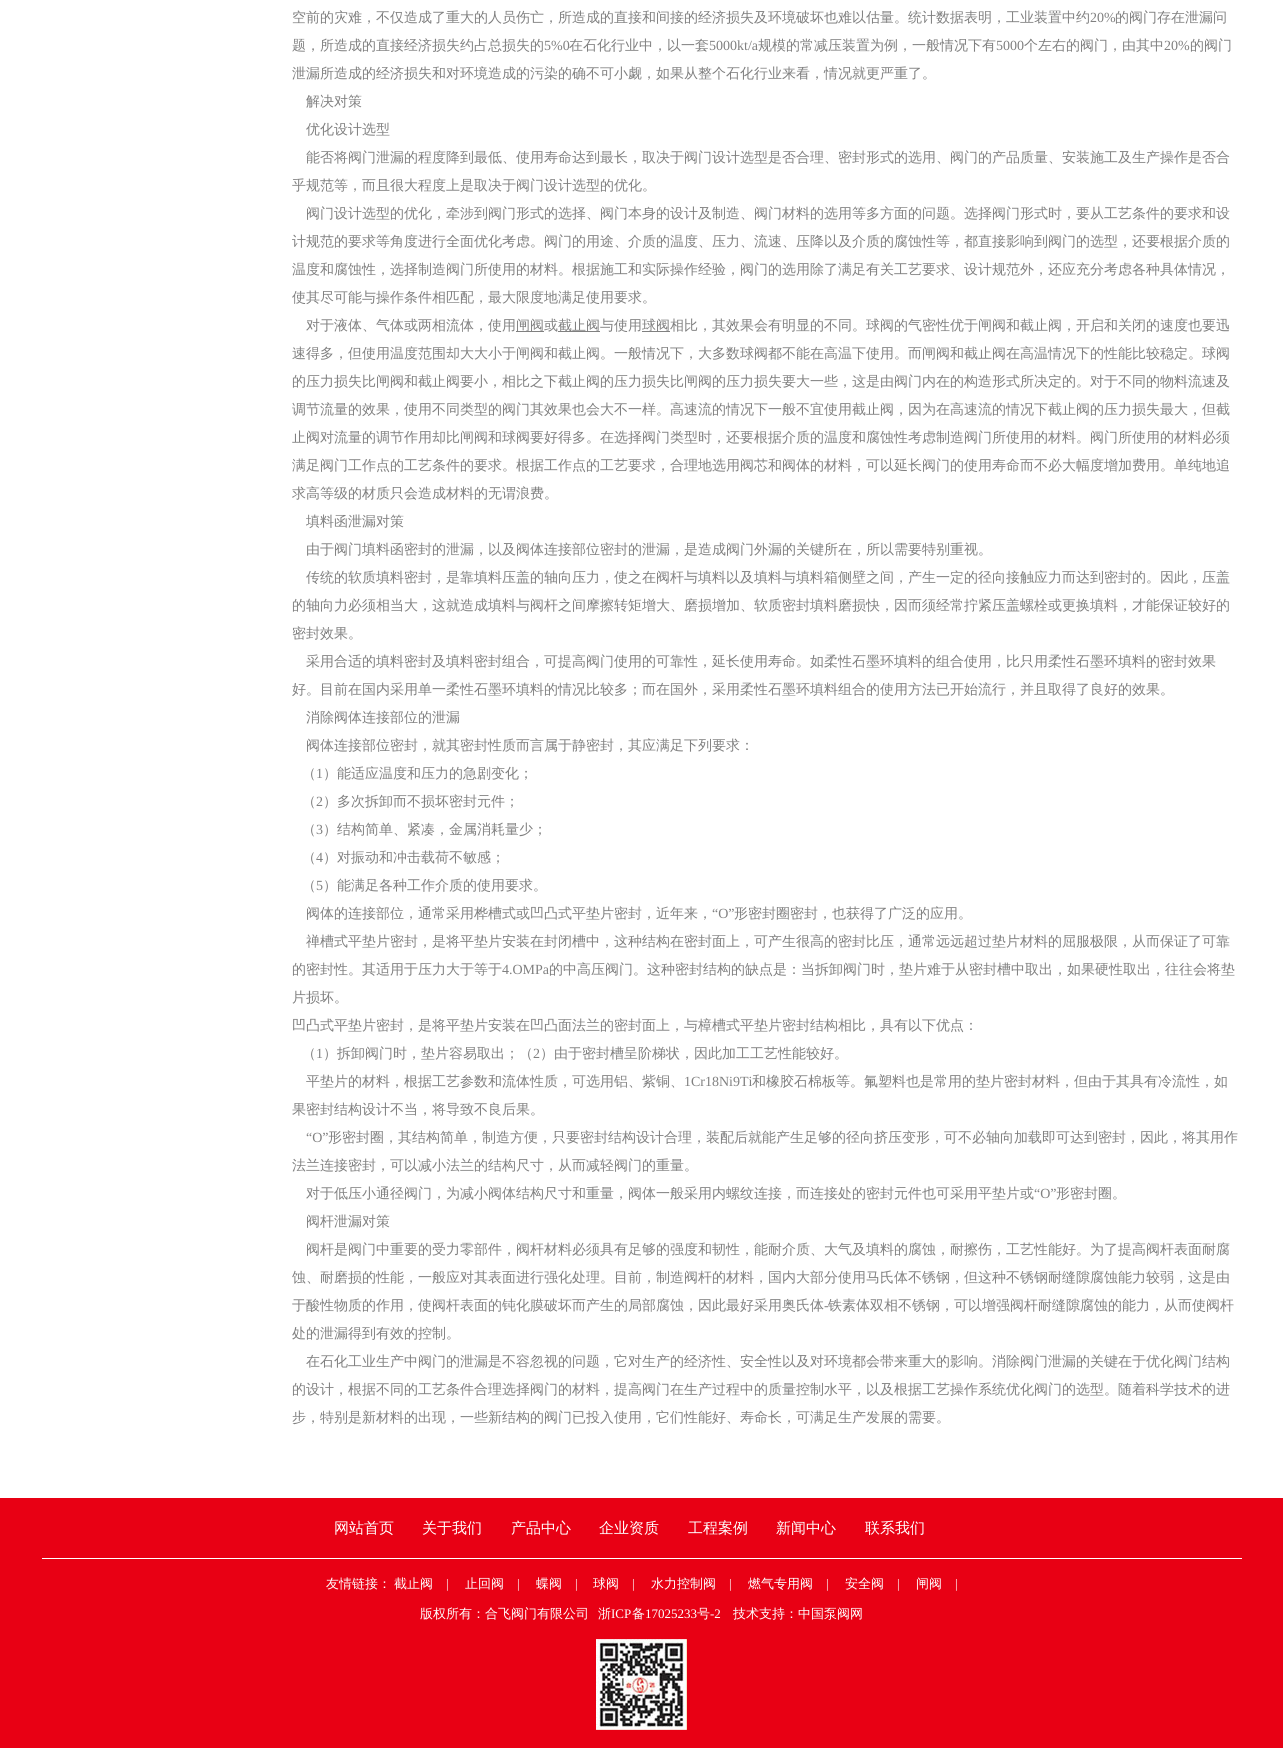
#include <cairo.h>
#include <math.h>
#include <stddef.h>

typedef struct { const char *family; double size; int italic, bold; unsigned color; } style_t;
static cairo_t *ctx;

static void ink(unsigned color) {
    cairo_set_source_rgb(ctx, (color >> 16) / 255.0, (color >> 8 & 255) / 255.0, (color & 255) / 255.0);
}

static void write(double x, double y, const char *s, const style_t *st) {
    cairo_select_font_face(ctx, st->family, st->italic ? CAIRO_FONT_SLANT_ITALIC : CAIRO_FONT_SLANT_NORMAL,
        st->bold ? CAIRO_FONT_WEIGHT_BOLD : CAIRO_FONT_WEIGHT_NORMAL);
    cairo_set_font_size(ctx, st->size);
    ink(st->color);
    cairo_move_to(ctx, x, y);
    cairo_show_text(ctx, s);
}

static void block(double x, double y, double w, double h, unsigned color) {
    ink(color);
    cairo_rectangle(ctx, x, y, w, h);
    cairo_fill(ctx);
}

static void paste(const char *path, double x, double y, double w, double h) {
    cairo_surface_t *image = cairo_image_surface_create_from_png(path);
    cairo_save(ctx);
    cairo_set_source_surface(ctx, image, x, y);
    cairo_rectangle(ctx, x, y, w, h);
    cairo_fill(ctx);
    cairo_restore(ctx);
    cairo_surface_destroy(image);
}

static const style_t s1 = {"WenQuanYi Zen Hei Medium", 14, 0, 0, 0x808080};
static const style_t s2 = {"Liberation Serif", 14, 0, 0, 0x808080};
static const style_t s3 = {"WenQuanYi Zen Hei Medium", 15, 0, 0, 0xffffff};
static const style_t s4 = {"WenQuanYi Zen Hei Medium", 13, 0, 0, 0xffffff};
static const style_t s5 = {"Liberation Serif", 13, 0, 0, 0xffffff};

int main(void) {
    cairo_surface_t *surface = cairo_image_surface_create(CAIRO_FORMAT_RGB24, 1283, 1748);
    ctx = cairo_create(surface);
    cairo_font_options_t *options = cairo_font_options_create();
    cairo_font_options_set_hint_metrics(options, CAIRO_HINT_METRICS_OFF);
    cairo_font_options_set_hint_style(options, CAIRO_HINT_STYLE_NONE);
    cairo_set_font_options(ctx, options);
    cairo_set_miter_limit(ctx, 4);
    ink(0xffffff);
    cairo_paint(ctx);
    write(292, 22, "空前的灾难，不仅造成了重大的人员伤亡，所造成的直接和间接的经济损失及环境破坏也难以估量。统计数据表明，工业装置中约", &s1);
    write(1090, 22, "20%", &s2);
    write(1115, 22, "的阀门存在泄漏问", &s1);
    write(292, 50, "题，所造成的直接经济损失约占总损失的", &s1);
    write(544, 50, "5%0", &s2);
    write(569, 50, "在石化行业中，以一套", &s1);
    write(709, 50, "5000kt/a", &s2);
    write(758, 50, "规模的常减压装置为例，一般情况下有", &s1);
    write(996, 50, "5000", &s2);
    write(1024, 50, "个左右的阀门，由其中", &s1);
    write(1164, 50, "20%", &s2);
    write(1190, 50, "的阀门", &s1);
    write(292, 78, "泄漏所造成的经济损失和对环境造成的污染的确不可小觑，如果从整个石化行业来看，情况就更严重了。", &s1);
    write(306, 106, "解决对策", &s1);
    write(306, 134, "优化设计选型", &s1);
    write(306, 162, "能否将阀门泄漏的程度降到最低、使用寿命达到最长，取决于阀门设计选型是否合理、密封形式的选用、阀门的产品质量、安装施工及生产操作是否合", &s1);
    write(292, 190, "乎规范等，而且很大程度上是取决于阀门设计选型的优化。", &s1);
    write(306, 218, "阀门设计选型的优化，牵涉到阀门形式的选择、阀门本身的设计及制造、阀门材料的选用等多方面的问题。选择阀门形式时，要从工艺条件的要求和设", &s1);
    write(292, 246, "计规范的要求等角度进行全面优化考虑。阀门的用途、介质的温度、压力、流速、压降以及介质的腐蚀性等，都直接影响到阀门的选型，还要根据介质的", &s1);
    write(292, 274, "温度和腐蚀性，选择制造阀门所使用的材料。根据施工和实际操作经验，阀门的选用除了满足有关工艺要求、设计规范外，还应充分考虑各种具体情况，", &s1);
    write(292, 302, "使其尽可能与操作条件相匹配，最大限度地满足使用要求。", &s1);
    write(306, 330, "对于液体、气体或两相流体，使用", &s1);
    block(516, 331, 28, 1, 0x808080);
    write(516, 330, "闸阀或", &s1);
    block(558, 331, 42, 1, 0x808080);
    write(558, 330, "截止阀与使用", &s1);
    block(642, 331, 28, 1, 0x808080);
    write(642, 330, "球阀相比，其效果会有明显的不同。球阀的气密性优于闸阀和截止阀，开启和关闭的速度也要迅", &s1);
    write(292, 358, "速得多，但使用温度范围却大大小于闸阀和截止阀。一般情况下，大多数球阀都不能在高温下使用。而闸阀和截止阀在高温情况下的性能比较稳定。球阀", &s1);
    write(292, 386, "的压力损失比闸阀和截止阀要小，相比之下截止阀的压力损失比闸阀的压力损失要大一些，这是由阀门内在的构造形式所决定的。对于不同的物料流速及", &s1);
    write(292, 414, "调节流量的效果，使用不同类型的阀门其效果也会大不一样。高速流的情况下一般不宜使用截止阀，因为在高速流的情况下截止阀的压力损失最大，但截", &s1);
    write(292, 442, "止阀对流量的调节作用却比闸阀和球阀要好得多。在选择阀门类型时，还要根据介质的温度和腐蚀性考虑制造阀门所使用的材料。阀门所使用的材料必须", &s1);
    write(292, 470, "满足阀门工作点的工艺条件的要求。根据工作点的工艺要求，合理地选用阀芯和阀体的材料，可以延长阀门的使用寿命而不必大幅度增加费用。单纯地追", &s1);
    write(292, 498, "求高等级的材质只会造成材料的无谓浪费。", &s1);
    write(306, 526, "填料函泄漏对策", &s1);
    write(306, 554, "由于阀门填料函密封的泄漏，以及阀体连接部位密封的泄漏，是造成阀门外漏的关键所在，所以需要特别重视。", &s1);
    write(306, 582, "传统的软质填料密封，是靠填料压盖的轴向压力，使之在阀杆与填料以及填料与填料箱侧壁之间，产生一定的径向接触应力而达到密封的。因此，压盖", &s1);
    write(292, 610, "的轴向力必须相当大，这就造成填料与阀杆之间摩擦转矩增大、磨损增加、软质密封填料磨损快，因而须经常拧紧压盖螺栓或更换填料，才能保证较好的", &s1);
    write(292, 638, "密封效果。", &s1);
    write(306, 666, "采用合适的填料密封及填料密封组合，可提高阀门使用的可靠性，延长使用寿命。如柔性石墨环填料的组合使用，比只用柔性石墨环填料的密封效果", &s1);
    write(292, 694, "好。目前在国内采用单一柔性石墨环填料的情况比较多；而在国外，采用柔性石墨环填料组合的使用方法已开始流行，并且取得了良好的效果。", &s1);
    write(306, 722, "消除阀体连接部位的泄漏", &s1);
    write(306, 750, "阀体连接部位密封，就其密封性质而言属于静密封，其应满足下列要求：", &s1);
    write(302, 778, "（", &s1);
    write(316, 778, "1", &s2);
    write(323, 778, "）能适应温度和压力的急剧变化；", &s1);
    write(302, 806, "（", &s1);
    write(316, 806, "2", &s2);
    write(323, 806, "）多次拆卸而不损坏密封元件；", &s1);
    write(302, 834, "（", &s1);
    write(316, 834, "3", &s2);
    write(323, 834, "）结构简单、紧凑，金属消耗量少；", &s1);
    write(302, 862, "（", &s1);
    write(316, 862, "4", &s2);
    write(323, 862, "）对振动和冲击载荷不敏感；", &s1);
    write(302, 890, "（", &s1);
    write(316, 890, "5", &s2);
    write(323, 890, "）能满足各种工作介质的使用要求。", &s1);
    write(306, 918, "阀体的连接部位，通常采用桦槽式或凹凸式平垫片密封，近年来，", &s1);
    write(712, 918, "“O”", &s2);
    write(734, 918, "形密封圈密封，也获得了广泛的应用。", &s1);
    write(306, 946, "禅槽式平垫片密封，是将平垫片安装在封闭槽中，这种结构在密封面上，可产生很高的密封比压，通常远远超过垫片材料的屈服极限，从而保证了可靠", &s1);
    write(292, 974, "的密封性。其适用于压力大于等于", &s1);
    write(502, 974, "4.OMPa", &s2);
    write(549, 974, "的中高压阀门。这种密封结构的缺点是：当拆卸阀门时，垫片难于从密封槽中取出，如果硬性取出，往往会将垫", &s1);
    write(292, 1002, "片损坏。", &s1);
    write(292, 1030, "凹凸式平垫片密封，是将平垫片安装在凹凸面法兰的密封面上，与樟槽式平垫片密封结构相比，具有以下优点：", &s1);
    write(302, 1058, "（", &s1);
    write(316, 1058, "1", &s2);
    write(323, 1058, "）拆卸阀门时，垫片容易取出；（", &s1);
    write(533, 1058, "2", &s2);
    write(540, 1058, "）由于密封槽呈阶梯状，因此加工工艺性能较好。", &s1);
    write(306, 1086, "平垫片的材料，根据工艺参数和流体性质，可选用铝、紫铜、", &s1);
    write(684, 1086, "1Cr18Ni9Ti", &s2);
    write(752, 1086, "和橡胶石棉板等。氟塑料也是常用的垫片密封材料，但由于其具有冷流性，如", &s1);
    write(292, 1114, "果密封结构设计不当，将导致不良后果。", &s1);
    write(306, 1142, "“O”", &s2);
    write(328, 1142, "形密封圈，其结构简单，制造方便，只要密封结构设计合理，装配后就能产生足够的径向挤压变形，可不必轴向加载即可达到密封，因此，将其用作", &s1);
    write(292, 1170, "法兰连接密封，可以减小法兰的结构尺寸，从而减轻阀门的重量。", &s1);
    write(306, 1198, "对于低压小通径阀门，为减小阀体结构尺寸和重量，阀体一般采用内螺纹连接，而连接处的密封元件也可采用平垫片或", &s1);
    write(1034, 1198, "“O”", &s2);
    write(1056, 1198, "形密封圈。", &s1);
    write(306, 1226, "阀杆泄漏对策", &s1);
    write(306, 1254, "阀杆是阀门中重要的受力零部件，阀杆材料必须具有足够的强度和韧性，能耐介质、大气及填料的腐蚀，耐擦伤，工艺性能好。为了提高阀杆表面耐腐", &s1);
    write(292, 1282, "蚀、耐磨损的性能，一般应对其表面进行强化处理。目前，制造阀杆的材料，国内大部分使用马氏体不锈钢，但这种不锈钢耐缝隙腐蚀能力较弱，这是由", &s1);
    write(292, 1310, "于酸性物质的作用，使阀杆表面的钝化膜破坏而产生的局部腐蚀，因此最好采用奥氏体", &s1);
    write(824, 1310, "-", &s2);
    write(828, 1310, "铁素体双相不锈钢，可以增强阀杆耐缝隙腐蚀的能力，从而使阀杆", &s1);
    write(292, 1338, "处的泄漏得到有效的控制。", &s1);
    write(306, 1366, "在石化工业生产中阀门的泄漏是不容忽视的问题，它对生产的经济性、安全性以及对环境都会带来重大的影响。消除阀门泄漏的关键在于优化阀门结构", &s1);
    write(292, 1394, "的设计，根据不同的工艺条件合理选择阀门的材料，提高阀门在生产过程中的质量控制水平，以及根据工艺操作系统优化阀门的选型。随着科学技术的进", &s1);
    write(292, 1422, "步，特别是新材料的出现，一些新结构的阀门已投入使用，它们性能好、寿命长，可满足生产发展的需要。", &s1);
    block(0, 1498, 1283, 250, 0xe80014);
    block(42, 1558, 1200, 1, 0xffffff);
    write(334, 1533, "网站首页", &s3);
    write(422, 1533, "关于我们", &s3);
    write(511, 1533, "产品中心", &s3);
    write(599, 1533, "企业资质", &s3);
    write(688, 1533, "工程案例", &s3);
    write(776, 1533, "新闻中心", &s3);
    write(865, 1533, "联系我们", &s3);
    write(326, 1588, "友情链接：", &s4);
    write(394, 1588, "截止阀", &s4);
    write(446, 1588, "|", &s5);
    write(465, 1588, "止回阀", &s4);
    write(517, 1588, "|", &s5);
    write(536, 1588, "蝶阀", &s4);
    write(575, 1588, "|", &s5);
    write(593, 1588, "球阀", &s4);
    write(632, 1588, "|", &s5);
    write(651, 1588, "水力控制阀", &s4);
    write(729, 1588, "|", &s5);
    write(748, 1588, "燃气专用阀", &s4);
    write(826, 1588, "|", &s5);
    write(845, 1588, "安全阀", &s4);
    write(897, 1588, "|", &s5);
    write(916, 1588, "闸阀", &s4);
    write(955, 1588, "|", &s5);
    write(420, 1618, "版权所有：合飞阀门有限公司", &s4);
    write(598, 1618, "浙", &s4);
    write(611, 1618, "ICP", &s5);
    write(632, 1618, "备", &s4);
    write(645, 1618, "17025233", &s5);
    write(697, 1618, "号", &s4);
    write(710, 1618, "-2", &s5);
    write(733, 1618, "技术支持：中国泵阀网", &s4);
    paste("pic1.png", 596, 1639, 91, 91);
    cairo_surface_write_to_png(surface, "screenshot.png");
    cairo_font_options_destroy(options);
    cairo_destroy(ctx);
    cairo_surface_destroy(surface);
    return 0;
}
